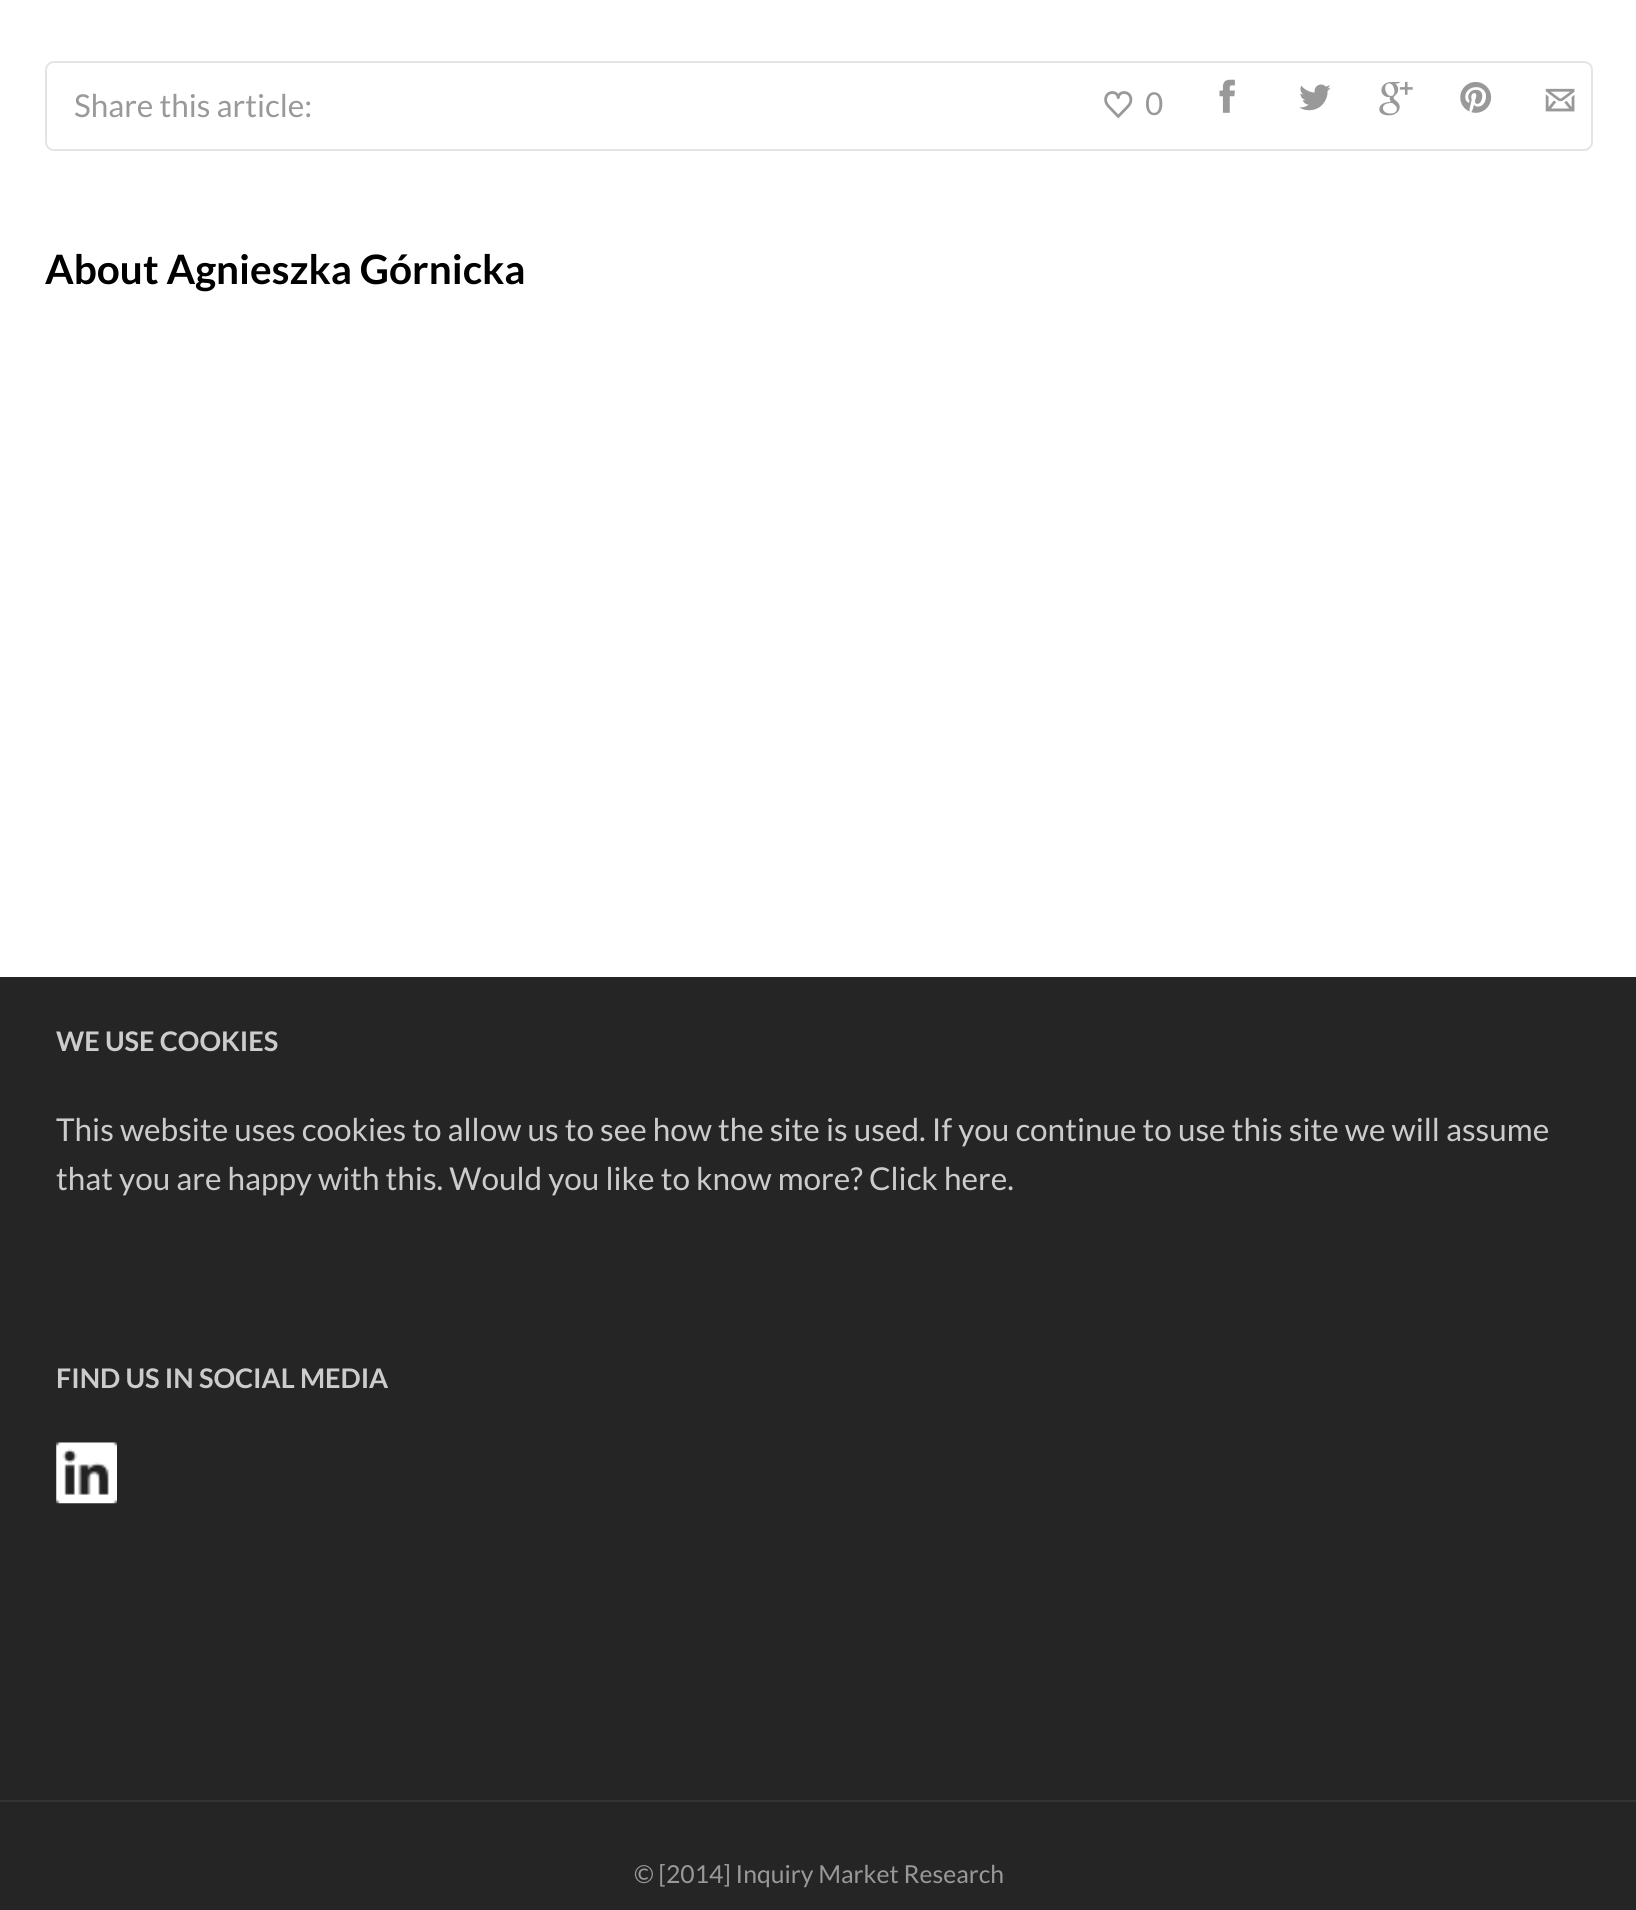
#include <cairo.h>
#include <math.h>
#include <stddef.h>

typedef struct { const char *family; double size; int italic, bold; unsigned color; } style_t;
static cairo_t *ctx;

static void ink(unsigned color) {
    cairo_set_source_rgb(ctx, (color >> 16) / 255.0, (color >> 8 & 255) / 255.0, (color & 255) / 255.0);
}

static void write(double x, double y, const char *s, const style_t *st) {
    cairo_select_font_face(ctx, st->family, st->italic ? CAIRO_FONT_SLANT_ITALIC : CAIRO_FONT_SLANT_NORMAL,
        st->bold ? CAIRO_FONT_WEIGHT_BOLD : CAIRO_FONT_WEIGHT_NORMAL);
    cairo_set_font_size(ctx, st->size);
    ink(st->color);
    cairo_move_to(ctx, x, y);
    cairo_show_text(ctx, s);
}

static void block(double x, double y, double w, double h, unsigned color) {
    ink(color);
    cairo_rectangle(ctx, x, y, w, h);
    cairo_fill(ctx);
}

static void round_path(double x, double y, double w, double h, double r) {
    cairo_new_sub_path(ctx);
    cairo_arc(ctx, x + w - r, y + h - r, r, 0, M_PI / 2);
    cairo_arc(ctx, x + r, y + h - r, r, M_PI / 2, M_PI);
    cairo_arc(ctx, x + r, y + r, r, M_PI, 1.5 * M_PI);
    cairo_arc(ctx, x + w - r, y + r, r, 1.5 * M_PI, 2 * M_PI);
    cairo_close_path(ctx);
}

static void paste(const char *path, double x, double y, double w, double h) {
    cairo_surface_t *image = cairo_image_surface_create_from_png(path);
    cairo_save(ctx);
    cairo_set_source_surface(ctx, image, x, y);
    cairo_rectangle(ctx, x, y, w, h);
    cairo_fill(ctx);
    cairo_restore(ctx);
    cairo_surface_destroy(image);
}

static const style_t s1 = {"Lato", 31.5, 0, 0, 0x999999};
static const style_t s2 = {"Lato", 40.5, 0, 1, 0x000000};
static const style_t s3 = {"Lato", 27, 0, 1, 0xcccccc};
static const style_t s4 = {"Lato", 31.5, 0, 0, 0xcccccc};
static const style_t s5 = {"Lato", 24.75, 0, 0, 0x999999};

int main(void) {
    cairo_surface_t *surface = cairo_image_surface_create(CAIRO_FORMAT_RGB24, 1636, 1910);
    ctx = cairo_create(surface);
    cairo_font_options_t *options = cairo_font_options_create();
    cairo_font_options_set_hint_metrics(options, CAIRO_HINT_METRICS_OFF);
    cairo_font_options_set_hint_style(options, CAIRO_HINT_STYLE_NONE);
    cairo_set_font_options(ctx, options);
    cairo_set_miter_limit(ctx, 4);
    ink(0xffffff);
    cairo_paint(ctx);
    round_path(46, 62, 1546, 88, 8);
    ink(0xe4e4e4);
    cairo_stroke(ctx);
    write(74, 117, "Share this article:", &s1);
    paste("pic1.png", 1104, 91, 29, 28);
    write(1145, 115, "0", &s1);
    paste("pic2.png", 1219, 79, 16, 34);
    paste("pic3.png", 1299, 84, 32, 27);
    paste("pic4.png", 1379, 81, 34, 35);
    paste("pic5.png", 1460, 82, 32, 31);
    paste("pic6.png", 1545, 88, 30, 24);
    write(45, 284, "About Agnieszka Górnicka", &s2);
    block(0, 977, 1636, 823, 0x252525);
    write(56, 1051, "WE USE COOKIES", &s3);
    write(56, 1141, "This website uses cookies to allow us to see how the site is used. If you continue to use this site we will assume", &s4);
    write(56, 1190, "that you are happy with this. Would you like to know more? Click here.", &s4);
    write(56, 1388, "FIND US IN SOCIAL MEDIA", &s3);
    paste("pic7.png", 56, 1442, 61, 62);
    block(0, 1802, 1636, 108, 0x252525);
    block(0, 1800, 1636, 2, 0x333333);
    write(634, 1883, "© [2014] Inquiry Market Research", &s5);
    cairo_surface_write_to_png(surface, "screenshot.png");
    cairo_font_options_destroy(options);
    cairo_destroy(ctx);
    cairo_surface_destroy(surface);
    return 0;
}
